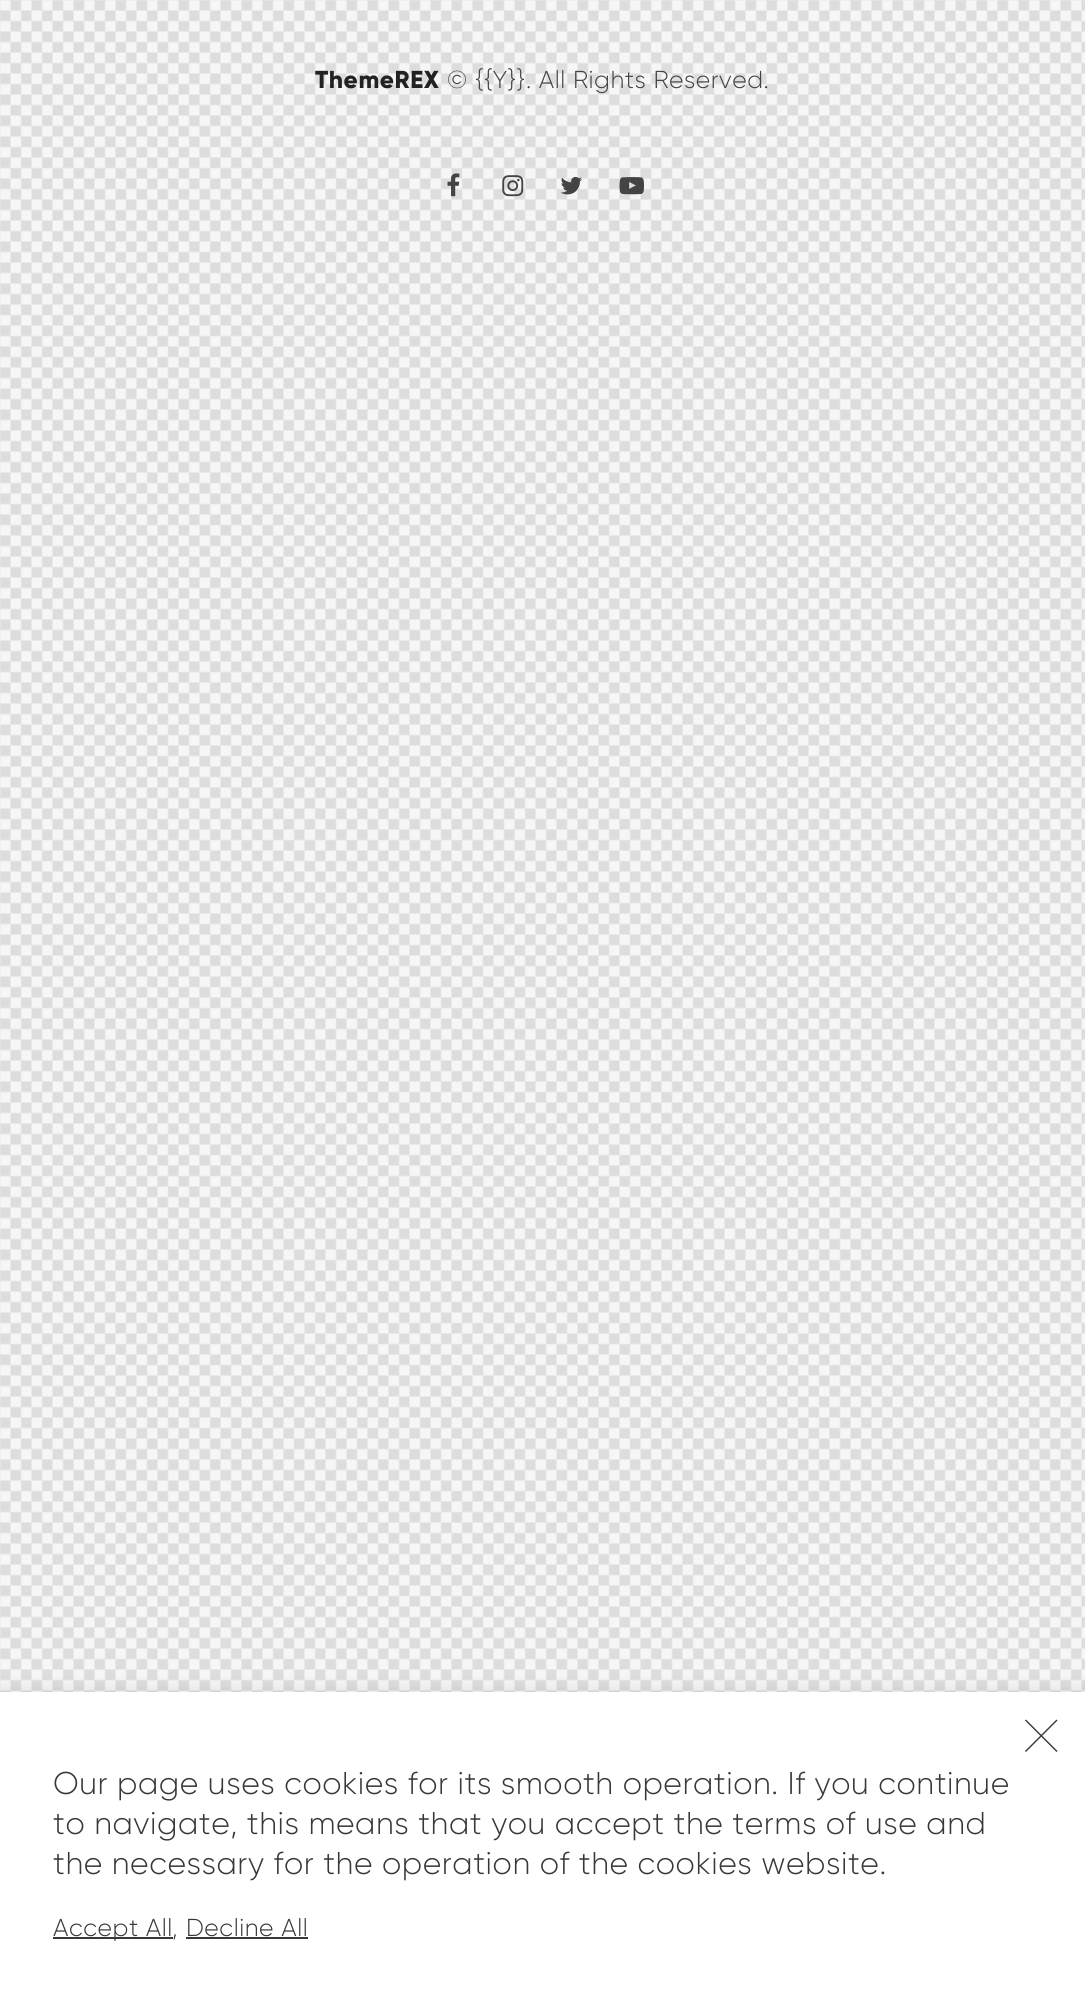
#include <cairo.h>
#include <math.h>
#include <stddef.h>

static cairo_t *ctx;

static void ink(unsigned color) {
    cairo_set_source_rgb(ctx, (color >> 16) / 255.0, (color >> 8 & 255) / 255.0, (color & 255) / 255.0);
}

static void write_spaced(double x, double y, const char *s, double letter, double word) {
    cairo_move_to(ctx, x, y);
    while (*s) {
        char ch[5] = {0};
        int n = 0;
        do ch[n++] = *s++; while ((*s & 0xC0) == 0x80);
        cairo_show_text(ctx, ch);
        cairo_rel_move_to(ctx, letter + word * (*ch == ' '), 0);
    }
}

static void block(double x, double y, double w, double h, unsigned color) {
    ink(color);
    cairo_rectangle(ctx, x, y, w, h);
    cairo_fill(ctx);
}

static void round_path(double x, double y, double w, double h, double r) {
    cairo_new_sub_path(ctx);
    cairo_arc(ctx, x + w - r, y + h - r, r, 0, M_PI / 2);
    cairo_arc(ctx, x + r, y + h - r, r, M_PI / 2, M_PI);
    cairo_arc(ctx, x + r, y + r, r, M_PI, 1.5 * M_PI);
    cairo_arc(ctx, x + w - r, y + r, r, 1.5 * M_PI, 2 * M_PI);
    cairo_close_path(ctx);
}

static void blur_box(double x, double y, double w, double h, double r, double blur, double alpha) {
    cairo_push_group_with_content(ctx, CAIRO_CONTENT_ALPHA);
    cairo_set_operator(ctx, CAIRO_OPERATOR_SOURCE);
    for (int i = 15; i >= -15 && fmin(w, h) + blur * i / 3 > 0; i -= 2) {
        double e = blur * i / 6;
        cairo_set_source_rgba(ctx, 0, 0, 0, alpha * erfc((i - 1) / 8.5) / 2);
        round_path(x - e, y - e, w + 2 * e, h + 2 * e, fmax(0, fmin(r + e + blur * .6, fmin(w, h) / 2 + e)));
        cairo_fill(ctx);
    }
    cairo_pattern_t *soft = cairo_pop_group(ctx);
    cairo_mask(ctx, soft);
    cairo_pattern_destroy(soft);
}

static void paste(const char *path, double x, double y, double w, double h) {
    cairo_surface_t *image = cairo_image_surface_create_from_png(path);
    cairo_save(ctx);
    cairo_set_source_surface(ctx, image, x, y);
    cairo_rectangle(ctx, x, y, w, h);
    cairo_fill(ctx);
    cairo_restore(ctx);
    cairo_surface_destroy(image);
}

int main(void) {
    cairo_surface_t *surface = cairo_image_surface_create(CAIRO_FORMAT_RGB24, 1085, 2002);
    ctx = cairo_create(surface);
    cairo_font_options_t *options = cairo_font_options_create();
    cairo_font_options_set_hint_metrics(options, CAIRO_HINT_METRICS_OFF);
    cairo_font_options_set_hint_style(options, CAIRO_HINT_STYLE_NONE);
    cairo_set_font_options(ctx, options);
    cairo_set_miter_limit(ctx, 4);
    ink(0xffffff);
    cairo_paint(ctx);
    paste("pic1.png", 0, 0, 1085, 1692);
    cairo_select_font_face(ctx, "Gilroy ExtraBold", CAIRO_FONT_SLANT_NORMAL, CAIRO_FONT_WEIGHT_NORMAL);
    cairo_set_font_size(ctx, 24.5);
    ink(0x222222);
    write_spaced(315, 88, "ThemeREX", 0.55, 0);
    cairo_select_font_face(ctx, "Gilroy Light", CAIRO_FONT_SLANT_NORMAL, CAIRO_FONT_WEIGHT_NORMAL);
    ink(0x444444);
    write_spaced(447, 88, "© {{Y}}. All Rights Reserved.", 0.55, 0);
    paste("pic2.png", 447, 173, 13, 24);
    paste("pic3.png", 502, 175, 22, 22);
    paste("pic4.png", 560, 176, 22, 19);
    paste("pic5.png", 619, 177, 25, 18);
    ink(0x000000);
    blur_box(0, 1691, 1085, 309, 0, 9, 0.1);
    block(0, 1692, 1085, 310, 0xffffff);
    ink(0x383838);
    cairo_new_path(ctx);
    cairo_move_to(ctx, 1025, 1751);
    cairo_line_to(ctx, 1056.5, 1719.5);
    cairo_line_to(ctx, 1057.5, 1720.5);
    cairo_line_to(ctx, 1026, 1752);
    cairo_close_path(ctx);
    cairo_fill(ctx);
    cairo_new_path(ctx);
    cairo_move_to(ctx, 1026, 1719.5);
    cairo_line_to(ctx, 1057.5, 1751);
    cairo_line_to(ctx, 1056.5, 1752);
    cairo_line_to(ctx, 1025, 1720.5);
    cairo_close_path(ctx);
    cairo_fill(ctx);
    cairo_set_font_size(ctx, 31.5);
    write_spaced(53, 1794, "Our page uses cookies for its smooth operation. If you continue", 0.55, 0);
    write_spaced(53, 1834, "to navigate, this means that you accept the terms of use and", 0.55, 0);
    write_spaced(53, 1874, "the necessary for the operation of the cookies website.", 0.55, 0);
    block(53, 1937, 120, 2, 0x383838);
    cairo_set_font_size(ctx, 24.5);
    write_spaced(53, 1936, "Accept All", 0.55, 0);
    ink(0x444444);
    write_spaced(172, 1936, ",", 0.55, 0);
    ink(0x383838);
    write_spaced(186, 1936, "Decline All", 0.55, 0);
    block(186, 1937, 122, 2, 0x383838);
    cairo_surface_write_to_png(surface, "screenshot.png");
    cairo_font_options_destroy(options);
    cairo_destroy(ctx);
    cairo_surface_destroy(surface);
    return 0;
}
